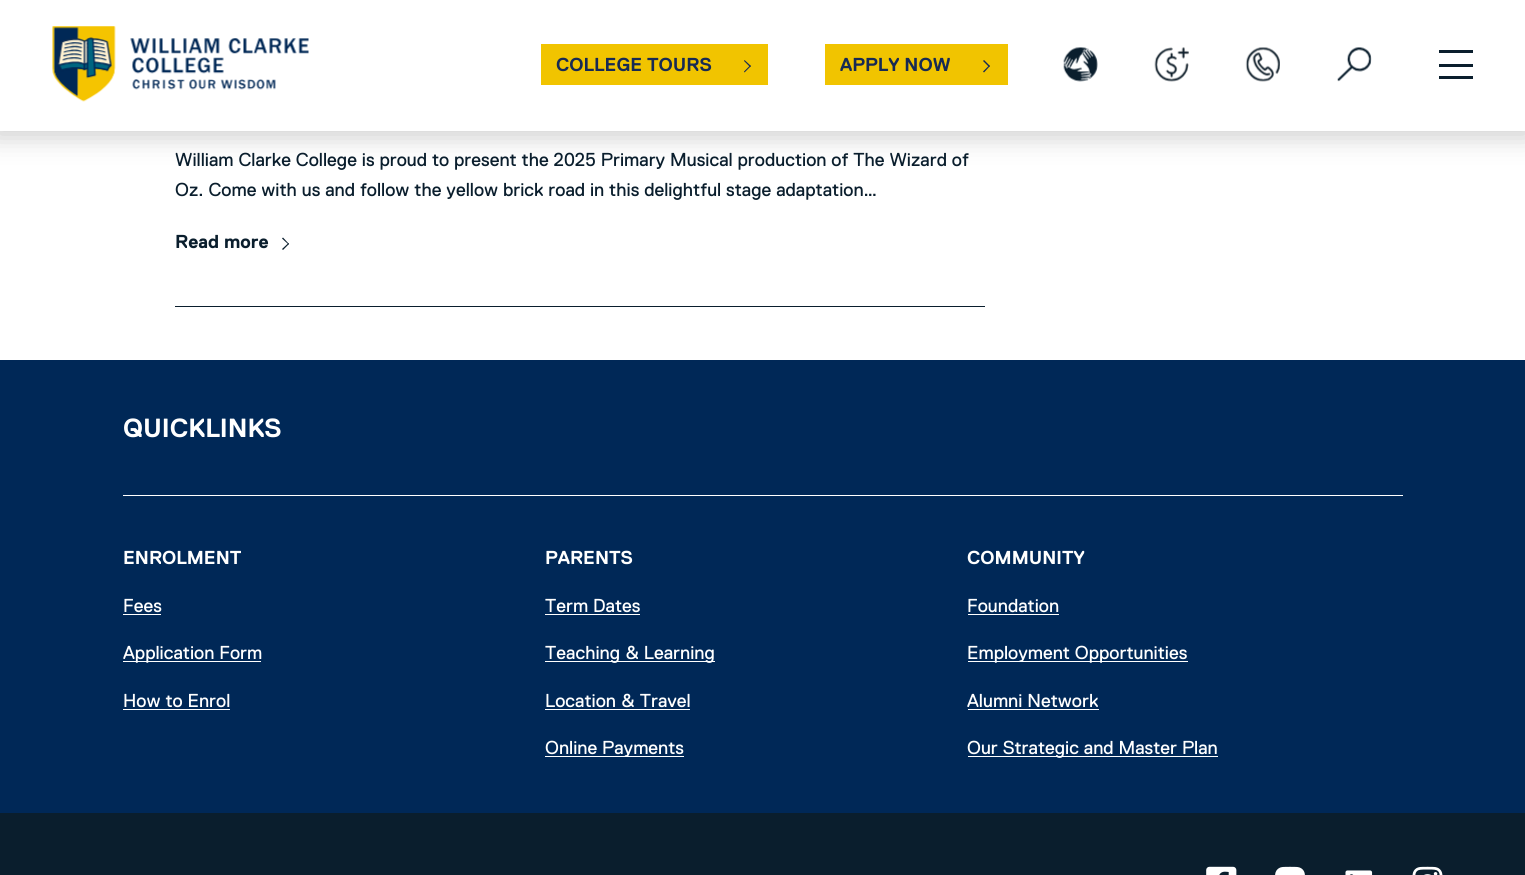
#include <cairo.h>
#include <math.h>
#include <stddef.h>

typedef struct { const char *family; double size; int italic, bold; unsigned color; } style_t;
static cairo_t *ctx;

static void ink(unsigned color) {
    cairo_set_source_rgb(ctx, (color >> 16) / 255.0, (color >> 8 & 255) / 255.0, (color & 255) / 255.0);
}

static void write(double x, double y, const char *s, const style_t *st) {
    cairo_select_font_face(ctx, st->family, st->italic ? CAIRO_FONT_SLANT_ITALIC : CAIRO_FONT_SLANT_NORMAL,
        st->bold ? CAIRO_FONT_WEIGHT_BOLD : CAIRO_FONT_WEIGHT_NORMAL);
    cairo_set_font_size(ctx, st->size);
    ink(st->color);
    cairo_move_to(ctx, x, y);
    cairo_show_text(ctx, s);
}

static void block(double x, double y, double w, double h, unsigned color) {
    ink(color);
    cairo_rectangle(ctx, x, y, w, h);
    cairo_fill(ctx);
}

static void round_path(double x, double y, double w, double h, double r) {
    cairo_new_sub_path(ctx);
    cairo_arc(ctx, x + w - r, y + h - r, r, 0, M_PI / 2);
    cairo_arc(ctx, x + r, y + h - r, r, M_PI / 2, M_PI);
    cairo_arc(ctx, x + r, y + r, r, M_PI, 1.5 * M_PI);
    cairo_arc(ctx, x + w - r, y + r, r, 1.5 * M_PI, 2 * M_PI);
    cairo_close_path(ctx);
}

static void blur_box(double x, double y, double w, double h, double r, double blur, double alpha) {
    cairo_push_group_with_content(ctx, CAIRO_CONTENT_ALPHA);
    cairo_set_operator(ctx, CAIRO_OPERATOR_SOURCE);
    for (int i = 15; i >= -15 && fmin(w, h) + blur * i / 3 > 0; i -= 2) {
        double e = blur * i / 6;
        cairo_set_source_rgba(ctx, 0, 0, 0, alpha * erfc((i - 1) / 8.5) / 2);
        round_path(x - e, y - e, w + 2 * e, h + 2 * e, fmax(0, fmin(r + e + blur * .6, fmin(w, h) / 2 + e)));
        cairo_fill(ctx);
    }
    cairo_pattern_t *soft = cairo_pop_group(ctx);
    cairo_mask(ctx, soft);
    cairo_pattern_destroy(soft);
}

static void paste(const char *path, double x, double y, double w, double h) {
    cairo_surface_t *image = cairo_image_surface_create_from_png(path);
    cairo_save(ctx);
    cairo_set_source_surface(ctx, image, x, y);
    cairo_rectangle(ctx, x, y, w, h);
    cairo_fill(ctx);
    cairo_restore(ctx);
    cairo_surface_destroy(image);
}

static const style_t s1 = {"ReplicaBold", 18.75, 0, 1, 0x172a54};
static const style_t s2 = {"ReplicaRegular", 18.75, 0, 0, 0x0a1e2d};
static const style_t s3 = {"ReplicaBold", 18.75, 0, 1, 0x0a1e2d};
static const style_t s4 = {"ReplicaBold", 26.25, 0, 1, 0xffffff};
static const style_t s5 = {"ReplicaBold", 18.75, 0, 1, 0xffffff};
static const style_t s6 = {"ReplicaRegular", 18.75, 0, 0, 0xffffff};

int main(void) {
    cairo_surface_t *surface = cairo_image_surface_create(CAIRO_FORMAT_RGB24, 1525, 875);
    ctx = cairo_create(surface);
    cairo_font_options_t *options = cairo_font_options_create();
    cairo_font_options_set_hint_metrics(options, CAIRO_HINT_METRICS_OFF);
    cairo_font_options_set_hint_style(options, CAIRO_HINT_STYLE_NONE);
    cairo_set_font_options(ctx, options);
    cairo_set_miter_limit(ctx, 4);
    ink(0xffffff);
    cairo_paint(ctx);
    ink(0x000000);
    blur_box(-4, -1, 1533, 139, 0, 12.5, 0.18);
    block(0, 0, 1525, 131, 0xffffff);
    paste("pic1.png", 52, 26, 257, 76);
    block(541, 44, 227, 41, 0xf1c400);
    write(556, 71, "COLLEGE TOURS", &s1);
    cairo_new_path(ctx);
    cairo_move_to(ctx, 744.5, 60);
    cairo_line_to(ctx, 751, 66);
    cairo_line_to(ctx, 750, 67);
    cairo_line_to(ctx, 744, 61);
    cairo_close_path(ctx);
    cairo_fill(ctx);
    cairo_new_path(ctx);
    cairo_move_to(ctx, 750, 65.5);
    cairo_line_to(ctx, 751, 66);
    cairo_line_to(ctx, 744.5, 72.5);
    cairo_line_to(ctx, 744, 71.5);
    cairo_close_path(ctx);
    cairo_fill(ctx);
    block(825, 44, 183, 41, 0xf1c400);
    write(840, 71, "APPLY NOW", &s1);
    cairo_new_path(ctx);
    cairo_move_to(ctx, 984, 60);
    cairo_line_to(ctx, 990, 66);
    cairo_line_to(ctx, 989, 67);
    cairo_line_to(ctx, 983, 61);
    cairo_close_path(ctx);
    cairo_fill(ctx);
    cairo_new_path(ctx);
    cairo_move_to(ctx, 989, 65.5);
    cairo_line_to(ctx, 990, 66);
    cairo_line_to(ctx, 984, 72.5);
    cairo_line_to(ctx, 983, 71.5);
    cairo_close_path(ctx);
    cairo_fill(ctx);
    paste("pic2.png", 1063, 47, 35, 35);
    paste("pic3.png", 1154, 47, 35, 35);
    paste("pic4.png", 1245, 47, 35, 35);
    paste("pic5.png", 1337, 47, 35, 35);
    block(1439, 50, 34, 3, 0x0a1e2d);
    block(1439, 76, 34, 3, 0x0a1e2d);
    block(1439, 64, 34, 3, 0x0a1e2d);
    block(175, 306, 810, 1, 0x0a1e2d);
    write(175, 166, "William Clarke College is proud to present the 2025 Primary Musical production of The Wizard of", &s2);
    write(175, 196, "Oz. Come with us and follow the yellow brick road in this delightful stage adaptation…", &s2);
    write(175, 248, "Read more", &s3);
    cairo_new_path(ctx);
    cairo_move_to(ctx, 283, 237.5);
    cairo_line_to(ctx, 289, 244);
    cairo_line_to(ctx, 288.5, 244.5);
    cairo_line_to(ctx, 282, 238.5);
    cairo_close_path(ctx);
    cairo_fill(ctx);
    cairo_new_path(ctx);
    cairo_move_to(ctx, 288.5, 243);
    cairo_line_to(ctx, 289, 244);
    cairo_line_to(ctx, 283, 250);
    cairo_line_to(ctx, 282, 249);
    cairo_close_path(ctx);
    cairo_fill(ctx);
    block(0, 360, 1525, 453, 0x002857);
    write(123, 437, "QUICKLINKS", &s4);
    block(123, 495, 1280, 1, 0xffffff);
    write(123, 564, "ENROLMENT", &s5);
    write(123, 612, "Fees", &s6);
    block(123, 614, 38, 1, 0xffffff);
    block(123, 661, 138, 1, 0xffffff);
    write(123, 659, "Application Form", &s6);
    write(123, 707, "How to Enrol", &s6);
    block(123, 709, 107, 1, 0xffffff);
    write(545, 564, "PARENTS", &s5);
    write(545, 612, "Term Dates", &s6);
    block(545, 614, 95, 1, 0xffffff);
    block(545, 661, 170, 1, 0xffffff);
    write(545, 659, "Teaching & Learning", &s6);
    write(545, 707, "Location & Travel", &s6);
    block(545, 709, 145, 1, 0xffffff);
    block(545, 756, 139, 1, 0xffffff);
    write(545, 754, "Online Payments", &s6);
    write(967, 564, "COMMUNITY", &s5);
    write(967, 612, "Foundation", &s6);
    block(968, 614, 91, 1, 0xffffff);
    block(968, 661, 220, 1, 0xffffff);
    write(967, 659, "Employment Opportunities", &s6);
    write(967, 707, "Alumni Network", &s6);
    block(968, 709, 131, 1, 0xffffff);
    block(968, 756, 250, 1, 0xffffff);
    write(967, 754, "Our Strategic and Master Plan", &s6);
    block(0, 813, 1525, 62, 0x0a1e2d);
    paste("pic6.png", 1206, 866, 31, 9);
    paste("pic7.png", 1275, 866, 30, 9);
    paste("pic8.png", 1345, 870, 28, 5);
    paste("pic9.png", 1412, 866, 31, 9);
    cairo_surface_write_to_png(surface, "screenshot.png");
    cairo_font_options_destroy(options);
    cairo_destroy(ctx);
    cairo_surface_destroy(surface);
    return 0;
}
